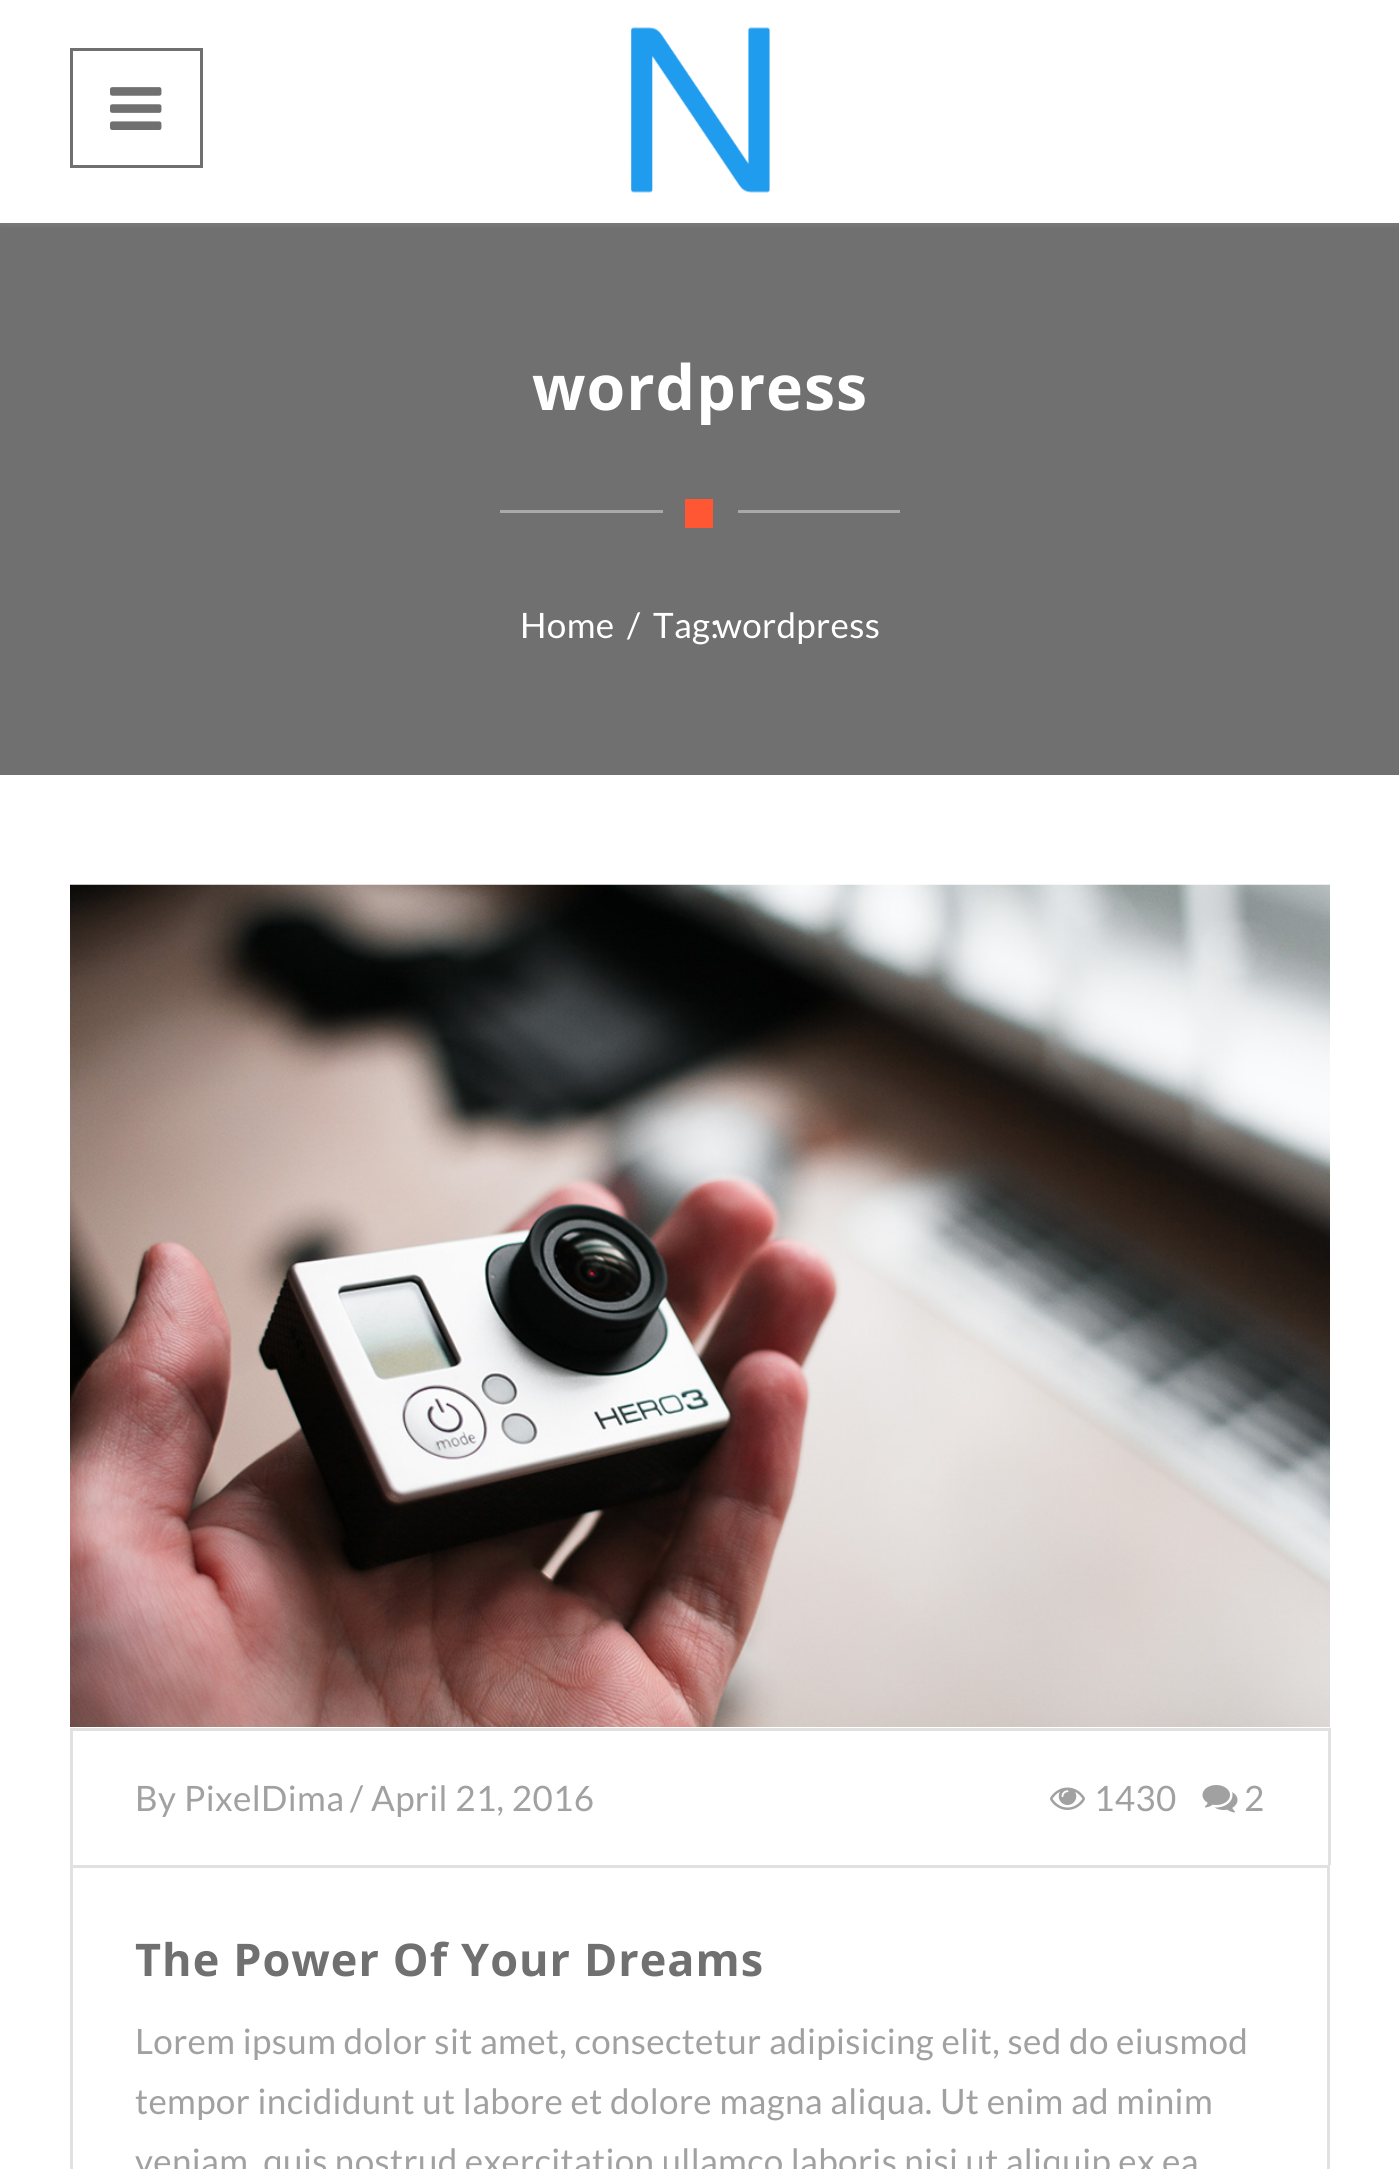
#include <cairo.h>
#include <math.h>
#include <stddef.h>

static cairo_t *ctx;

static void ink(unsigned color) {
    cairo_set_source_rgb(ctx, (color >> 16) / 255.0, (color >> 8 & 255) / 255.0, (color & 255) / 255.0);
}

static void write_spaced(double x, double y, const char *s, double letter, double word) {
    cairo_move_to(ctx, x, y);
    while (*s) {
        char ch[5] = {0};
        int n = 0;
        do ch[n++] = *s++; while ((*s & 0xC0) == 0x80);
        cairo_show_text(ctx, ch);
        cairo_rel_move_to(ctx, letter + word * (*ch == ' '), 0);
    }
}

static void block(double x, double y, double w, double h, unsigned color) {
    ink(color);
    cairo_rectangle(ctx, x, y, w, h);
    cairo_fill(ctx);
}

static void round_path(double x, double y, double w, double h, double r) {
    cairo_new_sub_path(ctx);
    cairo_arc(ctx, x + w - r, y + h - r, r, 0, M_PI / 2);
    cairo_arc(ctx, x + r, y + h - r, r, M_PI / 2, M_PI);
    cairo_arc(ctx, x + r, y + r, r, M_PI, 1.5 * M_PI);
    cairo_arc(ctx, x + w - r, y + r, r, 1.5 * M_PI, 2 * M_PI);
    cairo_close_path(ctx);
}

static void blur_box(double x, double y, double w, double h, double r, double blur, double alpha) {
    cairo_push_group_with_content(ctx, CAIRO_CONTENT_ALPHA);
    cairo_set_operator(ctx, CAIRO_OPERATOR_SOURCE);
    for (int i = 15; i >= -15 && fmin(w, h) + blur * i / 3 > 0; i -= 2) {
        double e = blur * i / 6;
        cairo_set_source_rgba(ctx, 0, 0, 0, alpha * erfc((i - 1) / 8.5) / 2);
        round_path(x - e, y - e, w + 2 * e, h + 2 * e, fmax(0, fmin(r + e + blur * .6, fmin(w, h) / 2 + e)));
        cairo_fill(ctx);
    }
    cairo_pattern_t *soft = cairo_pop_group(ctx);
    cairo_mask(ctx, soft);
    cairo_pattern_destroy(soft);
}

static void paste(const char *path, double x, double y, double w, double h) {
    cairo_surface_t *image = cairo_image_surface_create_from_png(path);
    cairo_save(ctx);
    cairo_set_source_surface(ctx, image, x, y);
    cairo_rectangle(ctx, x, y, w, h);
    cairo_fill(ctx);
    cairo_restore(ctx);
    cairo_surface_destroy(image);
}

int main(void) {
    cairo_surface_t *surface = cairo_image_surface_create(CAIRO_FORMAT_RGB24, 1399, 2169);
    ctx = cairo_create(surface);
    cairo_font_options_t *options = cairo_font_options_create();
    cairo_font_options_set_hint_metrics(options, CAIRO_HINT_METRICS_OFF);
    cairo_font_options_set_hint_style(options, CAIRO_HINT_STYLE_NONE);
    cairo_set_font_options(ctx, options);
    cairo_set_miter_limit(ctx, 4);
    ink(0xffffff);
    cairo_paint(ctx);
    block(0, 223, 1399, 552, 0x707070);
    ink(0xa1a1a1);
    blur_box(0, 0, 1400, 225, 0, 2.5, 0.25);
    block(0, 0, 1399, 223, 0xffffff);
    cairo_rectangle(ctx, 71.5, 49.5, 130, 117);
    ink(0x707070);
    cairo_set_line_width(ctx, 3);
    cairo_stroke(ctx);
    paste("pic1.png", 110, 87, 52, 43);
    paste("pic2.png", 631, 27, 139, 166);
    cairo_select_font_face(ctx, "Open Sans", CAIRO_FONT_SLANT_NORMAL, CAIRO_FONT_WEIGHT_BOLD);
    cairo_set_font_size(ctx, 62.5);
    ink(0xffffff);
    write_spaced(532, 410, "wordpress", 1, 0);
    block(500, 510, 163, 3, 0xa9a9a9);
    block(685, 499, 28, 29, 0xff5733);
    block(738, 510, 162, 3, 0xa9a9a9);
    cairo_select_font_face(ctx, "Lato", CAIRO_FONT_SLANT_NORMAL, CAIRO_FONT_WEIGHT_NORMAL);
    cairo_set_font_size(ctx, 35);
    ink(0xffffff);
    write_spaced(520, 638, "Home", 0.35, 0);
    write_spaced(627, 638, "/", 0.35, 0);
    write_spaced(653, 638, "Tag:", 0.35, 0);
    write_spaced(715, 638, "wordpress", 0.35, 0);
    paste("pic3.png", 70, 884, 1260, 843);
    block(70, 1728, 1260, 3, 0xe1e1e1);
    block(1328, 1728, 3, 137, 0xe1e1e1);
    block(70, 1728, 3, 137, 0xe1e1e1);
    ink(0xa1a1a1);
    write_spaced(135, 1811, "By", 0.35, 0);
    write_spaced(184, 1811, "PixelDima", 0.35, 0);
    write_spaced(350, 1811, "/", 0.35, 0);
    write_spaced(371, 1811, "April 21, 2016", 0.35, 0.3);
    paste("pic4.png", 1050, 1787, 35, 23);
    write_spaced(1094, 1811, "1430", 0.35, 0);
    paste("pic5.png", 1202, 1785, 36, 28);
    write_spaced(1244, 1811, "2", 0.35, 0);
    cairo_rectangle(ctx, 71.5, 1866.5, 1257, 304);
    ink(0xe1e1e1);
    cairo_stroke(ctx);
    cairo_select_font_face(ctx, "Open Sans", CAIRO_FONT_SLANT_NORMAL, CAIRO_FONT_WEIGHT_BOLD);
    cairo_set_font_size(ctx, 45);
    ink(0x707070);
    write_spaced(135, 1976, "The Power Of Your Dreams", 1, 0.3);
    cairo_select_font_face(ctx, "Lato", CAIRO_FONT_SLANT_NORMAL, CAIRO_FONT_WEIGHT_NORMAL);
    cairo_set_font_size(ctx, 35);
    ink(0xa1a1a1);
    write_spaced(135, 2054, "Lorem ipsum dolor sit amet, consectetur adipisicing elit, sed do eiusmod", 0.35, 0.3);
    write_spaced(135, 2114, "tempor incididunt ut labore et dolore magna aliqua. Ut enim ad minim", 0.35, 0.3);
    write_spaced(135, 2174, "veniam, quis nostrud exercitation ullamco laboris nisi ut aliquip ex ea", 0.35, 0);
    cairo_surface_write_to_png(surface, "screenshot.png");
    cairo_font_options_destroy(options);
    cairo_destroy(ctx);
    cairo_surface_destroy(surface);
    return 0;
}
